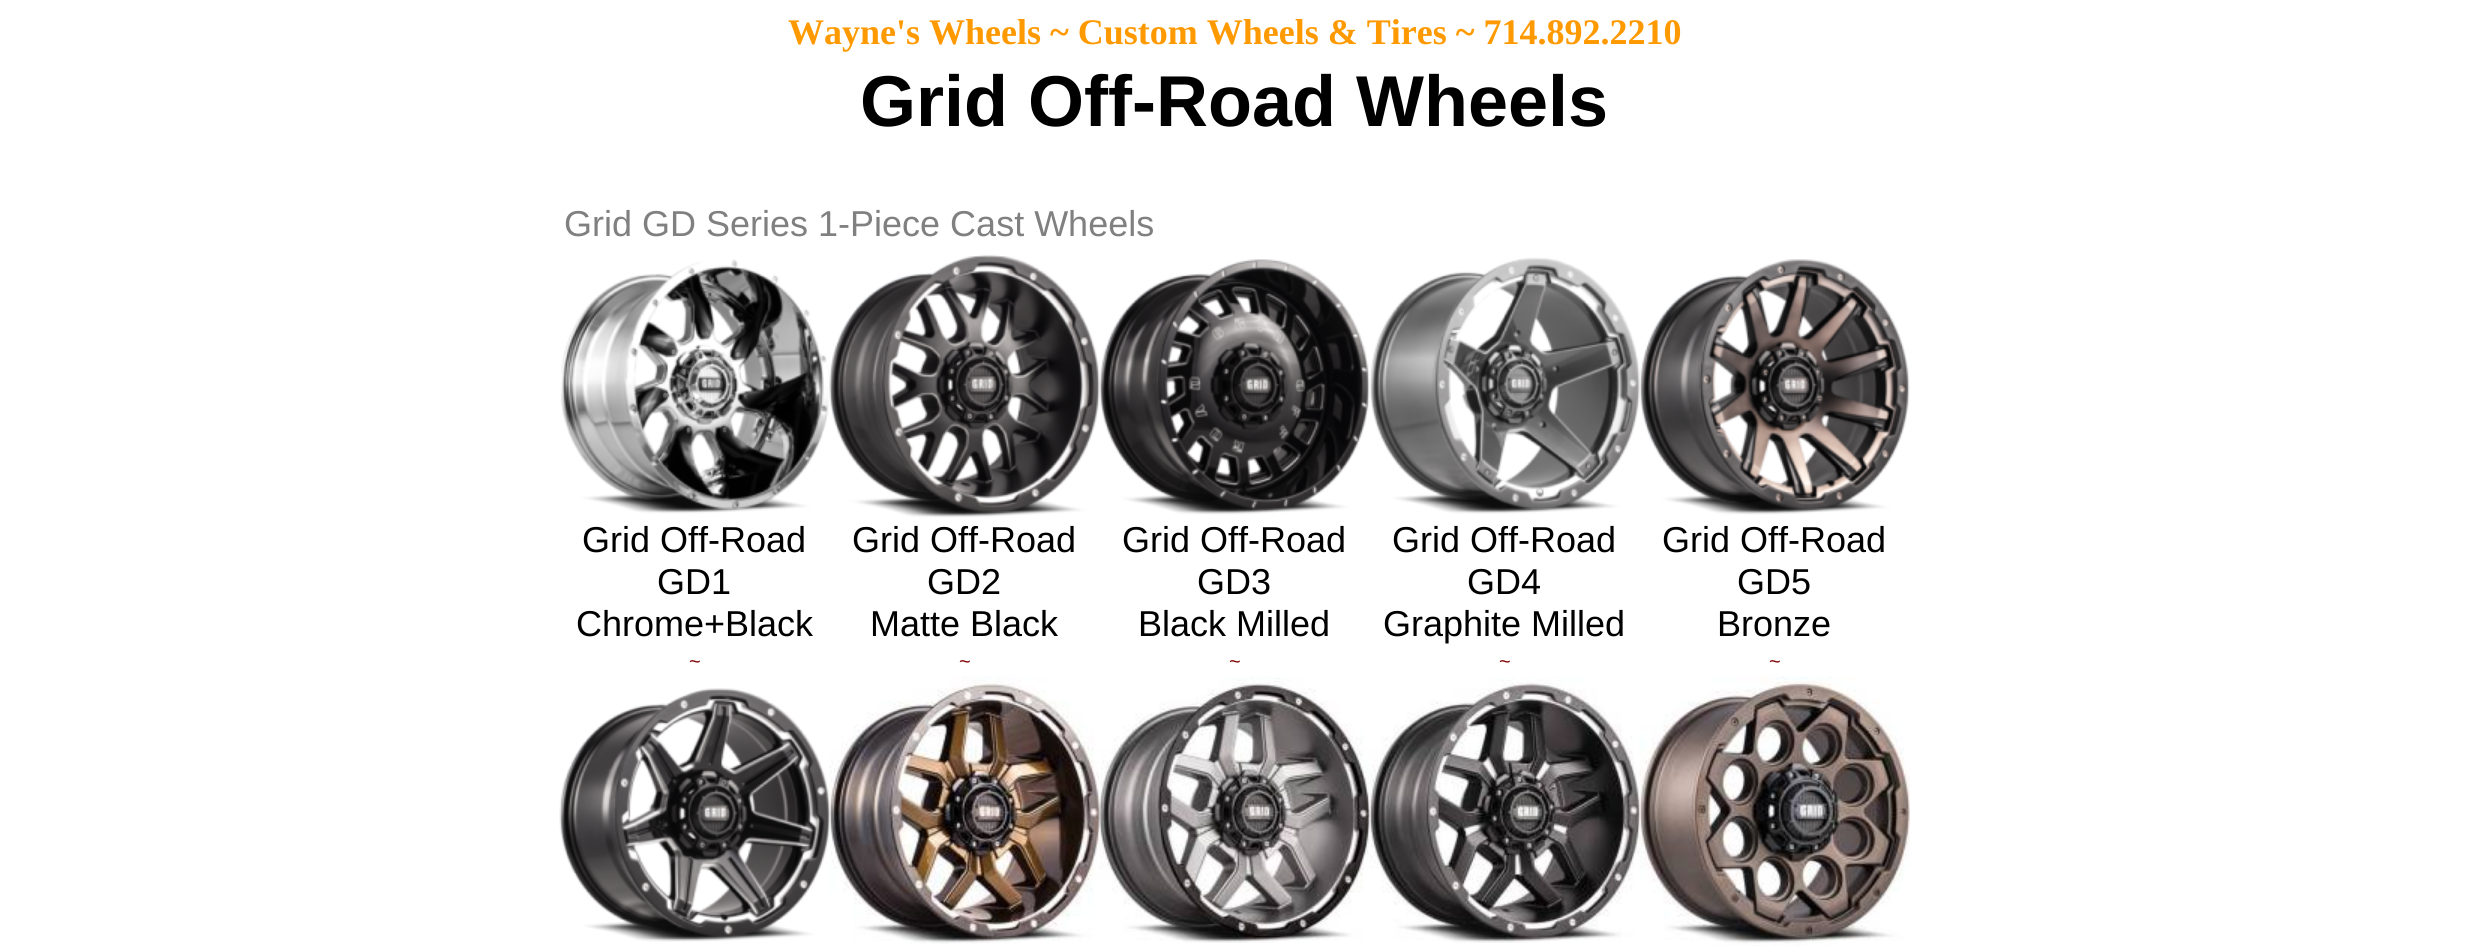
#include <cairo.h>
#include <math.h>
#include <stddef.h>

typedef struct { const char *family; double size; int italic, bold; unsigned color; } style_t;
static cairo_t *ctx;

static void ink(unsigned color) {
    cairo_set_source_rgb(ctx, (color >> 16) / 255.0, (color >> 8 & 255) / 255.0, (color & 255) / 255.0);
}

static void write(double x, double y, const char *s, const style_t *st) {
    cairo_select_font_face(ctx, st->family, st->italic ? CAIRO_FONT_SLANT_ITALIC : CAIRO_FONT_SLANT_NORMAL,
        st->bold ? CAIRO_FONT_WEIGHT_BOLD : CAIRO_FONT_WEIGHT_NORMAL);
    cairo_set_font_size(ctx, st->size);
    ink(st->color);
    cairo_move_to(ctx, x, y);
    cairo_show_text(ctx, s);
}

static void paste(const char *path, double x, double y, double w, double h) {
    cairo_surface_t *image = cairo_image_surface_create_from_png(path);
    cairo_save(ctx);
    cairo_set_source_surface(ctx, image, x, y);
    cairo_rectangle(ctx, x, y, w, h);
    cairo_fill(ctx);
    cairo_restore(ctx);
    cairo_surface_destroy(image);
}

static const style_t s1 = {"Liberation Serif", 36, 0, 1, 0xff9900};
static const style_t s2 = {"Liberation Sans", 72, 0, 1, 0x000000};
static const style_t s3 = {"Liberation Sans", 36, 0, 0, 0x808080};
static const style_t s4 = {"Liberation Sans", 36, 0, 0, 0x000000};
static const style_t s5 = {"Liberation Sans", 20, 0, 0, 0x800000};

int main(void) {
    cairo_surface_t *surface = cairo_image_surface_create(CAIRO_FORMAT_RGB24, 2469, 948);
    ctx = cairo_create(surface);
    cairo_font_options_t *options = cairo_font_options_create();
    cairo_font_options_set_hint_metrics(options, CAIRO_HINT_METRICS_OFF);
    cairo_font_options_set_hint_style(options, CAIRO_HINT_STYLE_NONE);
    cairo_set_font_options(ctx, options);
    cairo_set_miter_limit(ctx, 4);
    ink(0xffffff);
    cairo_paint(ctx);
    write(788, 44, "Wayne's Wheels ~ Custom Wheels & Tires ~ 714.892.2210", &s1);
    write(860, 126, "Grid Off-Road Wheels", &s2);
    write(564, 236, "Grid GD Series 1-Piece Cast Wheels", &s3);
    paste("pic1.png", 560, 259, 269, 255);
    write(582, 552, "Grid Off-Road", &s4);
    write(657, 594, "GD1", &s4);
    write(576, 636, "Chrome+Black", &s4);
    write(689, 668, "~", &s5);
    paste("pic2.png", 829, 254, 271, 264);
    write(852, 552, "Grid Off-Road", &s4);
    write(927, 594, "GD2", &s4);
    write(870, 636, "Matte Black", &s4);
    write(959, 668, "~", &s5);
    paste("pic3.png", 1099, 259, 271, 256);
    write(1122, 552, "Grid Off-Road", &s4);
    write(1197, 594, "GD3", &s4);
    write(1138, 636, "Black Milled", &s4);
    write(1229, 668, "~", &s5);
    paste("pic4.png", 1370, 257, 270, 257);
    write(1392, 552, "Grid Off-Road", &s4);
    write(1467, 594, "GD4", &s4);
    write(1383, 636, "Graphite Milled", &s4);
    write(1499, 668, "~", &s5);
    paste("pic5.png", 1639, 259, 271, 256);
    write(1662, 552, "Grid Off-Road", &s4);
    write(1737, 594, "GD5", &s4);
    write(1717, 636, "Bronze", &s4);
    write(1769, 668, "~", &s5);
    paste("pic6.png", 559, 688, 271, 254);
    paste("pic7.png", 829, 676, 271, 268);
    paste("pic8.png", 1099, 676, 271, 267);
    paste("pic9.png", 1369, 677, 271, 266);
    paste("pic10.png", 1639, 676, 271, 270);
    cairo_surface_write_to_png(surface, "screenshot.png");
    cairo_font_options_destroy(options);
    cairo_destroy(ctx);
    cairo_surface_destroy(surface);
    return 0;
}
